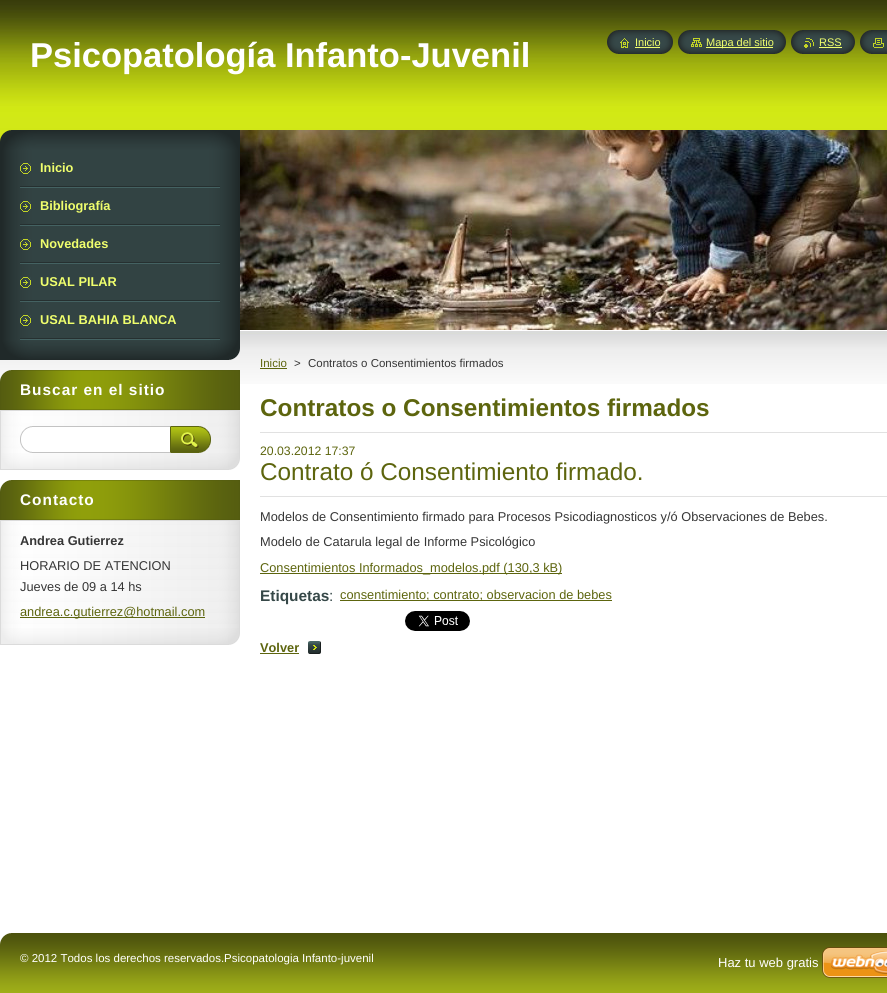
#include <cairo.h>
#include <math.h>
#include <stddef.h>

typedef struct { const char *family; double size; int italic, bold; unsigned color; } style_t;
static cairo_t *ctx;

static void ink(unsigned color) {
    cairo_set_source_rgb(ctx, (color >> 16) / 255.0, (color >> 8 & 255) / 255.0, (color & 255) / 255.0);
}

static void write(double x, double y, const char *s, const style_t *st) {
    cairo_select_font_face(ctx, st->family, st->italic ? CAIRO_FONT_SLANT_ITALIC : CAIRO_FONT_SLANT_NORMAL,
        st->bold ? CAIRO_FONT_WEIGHT_BOLD : CAIRO_FONT_WEIGHT_NORMAL);
    cairo_set_font_size(ctx, st->size);
    ink(st->color);
    cairo_move_to(ctx, x, y);
    cairo_show_text(ctx, s);
}

static void write_spaced(double x, double y, const char *s, double letter, double word) {
    cairo_move_to(ctx, x, y);
    while (*s) {
        char ch[5] = {0};
        int n = 0;
        do ch[n++] = *s++; while ((*s & 0xC0) == 0x80);
        cairo_show_text(ctx, ch);
        cairo_rel_move_to(ctx, letter + word * (*ch == ' '), 0);
    }
}

static void block(double x, double y, double w, double h, unsigned color) {
    ink(color);
    cairo_rectangle(ctx, x, y, w, h);
    cairo_fill(ctx);
}

static void paste(const char *path, double x, double y, double w, double h) {
    cairo_surface_t *image = cairo_image_surface_create_from_png(path);
    cairo_save(ctx);
    cairo_set_source_surface(ctx, image, x, y);
    cairo_rectangle(ctx, x, y, w, h);
    cairo_fill(ctx);
    cairo_restore(ctx);
    cairo_surface_destroy(image);
}

static const style_t s1 = {"Liberation Sans", 34.5, 0, 1, 0xffffff};
static const style_t s2 = {"Liberation Sans", 11, 0, 0, 0xf0ff6d};
static const style_t s3 = {"Liberation Sans", 12.8, 0, 1, 0xf0ff6d};
static const style_t s4 = {"Liberation Sans", 12.8, 0, 1, 0x363636};
static const style_t s5 = {"Liberation Sans", 12.8, 0, 0, 0x363636};
static const style_t s6 = {"Liberation Sans", 12.8, 0, 0, 0x5d650e};
static const style_t s7 = {"Liberation Sans", 11.5, 0, 0, 0x5d650e};
static const style_t s8 = {"Liberation Sans", 11.5, 0, 0, 0x363636};
static const style_t s9 = {"Liberation Sans", 24.3, 0, 1, 0x5d650e};
static const style_t s10 = {"Liberation Sans", 12.25, 0, 0, 0x5d650e};
static const style_t s11 = {"Liberation Sans", 24.3, 0, 0, 0x5d650e};
static const style_t s12 = {"Liberation Sans", 15.4, 0, 1, 0x364848};
static const style_t s13 = {"Liberation Sans", 15.4, 0, 0, 0x364848};
static const style_t s14 = {"Liberation Sans", 12.8, 0, 1, 0x5d650e};
static const style_t s15 = {"Liberation Sans", 11.5, 0, 0, 0xffffff};
static const style_t s16 = {"Liberation Sans", 13, 0, 0, 0xffffff};

int main(void) {
    cairo_surface_t *surface = cairo_image_surface_create(CAIRO_FORMAT_RGB24, 887, 993);
    ctx = cairo_create(surface);
    cairo_font_options_t *options = cairo_font_options_create();
    cairo_font_options_set_hint_metrics(options, CAIRO_HINT_METRICS_OFF);
    cairo_font_options_set_hint_style(options, CAIRO_HINT_STYLE_NONE);
    cairo_set_font_options(ctx, options);
    cairo_set_miter_limit(ctx, 4);
    ink(0xffffff);
    cairo_paint(ctx);
    paste("pic1.png", 0, 0, 887, 384);
    write(30, 67, "Psicopatología Infanto-Juvenil", &s1);
    paste("pic2.png", 607, 30, 13, 24);
    paste("pic3.png", 620, 30, 53, 24);
    paste("pic4.png", 620, 38, 9, 10);
    write(635, 46, "Inicio", &s2);
    block(635, 47, 25, 1, 0xf0ff6d);
    paste("pic2.png", 678, 30, 13, 24);
    paste("pic5.png", 691, 30, 95, 24);
    paste("pic6.png", 691, 38, 11, 9);
    block(706, 47, 67, 1, 0xf0ff6d);
    write(706, 46, "Mapa del sitio", &s2);
    paste("pic2.png", 791, 30, 13, 24);
    paste("pic7.png", 804, 30, 51, 24);
    paste("pic8.png", 804, 38, 10, 10);
    write(819, 46, "RSS", &s2);
    block(819, 47, 23, 1, 0xf0ff6d);
    paste("pic2.png", 860, 30, 13, 24);
    paste("pic9.png", 873, 30, 14, 24);
    paste("pic10.png", 873, 38, 11, 10);
    paste("pic11.png", 0, 130, 240, 20);
    paste("pic12.png", 0, 340, 240, 20);
    paste("pic13.png", 0, 150, 240, 190);
    paste("pic14.png", 20, 186, 200, 2);
    paste("pic15.png", 20, 163, 11, 11);
    write(40, 172, "Inicio", &s3);
    paste("pic14.png", 20, 224, 200, 2);
    paste("pic15.png", 20, 201, 11, 11);
    write(40, 210, "Bibliografía", &s3);
    paste("pic14.png", 20, 262, 200, 2);
    paste("pic15.png", 20, 239, 11, 11);
    write(40, 248, "Novedades", &s3);
    paste("pic14.png", 20, 300, 200, 2);
    paste("pic15.png", 20, 277, 11, 11);
    write(40, 286, "USAL PILAR", &s3);
    paste("pic14.png", 20, 338, 200, 2);
    paste("pic15.png", 20, 315, 11, 11);
    write(40, 324, "USAL BAHIA BLANCA", &s3);
    paste("pic16.png", 0, 453, 240, 17);
    paste("pic17.png", 0, 370, 240, 40);
    cairo_set_font_size(ctx, 15.4);
    ink(0xffffff);
    write_spaced(20, 395, "Buscar en el sitio", 1, 0);
    paste("pic18.png", 0, 411, 240, 42);
    block(0, 410, 240, 1, 0xdbdbdb);
    paste("pic19.png", 20, 426, 150, 27);
    paste("pic20.png", 170, 426, 41, 27);
    paste("pic16.png", 0, 628, 240, 17);
    paste("pic21.png", 0, 480, 240, 40);
    ink(0xffffff);
    write_spaced(20, 505, "Contacto", 1, 0);
    paste("pic22.png", 0, 521, 240, 107);
    block(0, 520, 240, 1, 0xdbdbdb);
    write(20, 545, "Andrea Gutierrez", &s4);
    write(20, 570, "HORARIO DE ATENCION", &s5);
    write(20, 591, "Jueves de 09 a 14 hs", &s5);
    block(20, 617, 185, 1, 0x5d650e);
    write(20, 616, "andrea.c.gutierrez@hotmail.com", &s6);
    paste("pic23.png", 240, 130, 647, 200);
    write(260, 367, "Inicio", &s7);
    block(260, 368, 27, 1, 0x5d650e);
    write(294, 367, ">", &s8);
    write(308, 367, "Contratos o Consentimientos firmados", &s8);
    block(260, 432, 627, 1, 0xe1e1e1);
    write(260, 416, "Contratos o Consentimientos firmados", &s9);
    write(260, 455, "20.03.2012 17:37", &s10);
    block(260, 496, 627, 1, 0xe1e1e1);
    write(260, 480, "Contrato ó Consentimiento firmado.", &s11);
    write(260, 521, "Modelos de Consentimiento firmado para Procesos Psicodiagnosticos y/ó Observaciones de Bebes.", &s5);
    write(260, 546, "Modelo de Catarula legal de Informe Psicológico", &s5);
    block(260, 573, 302, 1, 0x5d650e);
    write(260, 572, "Consentimientos Informados_modelos.pdf (130,3 kB)", &s6);
    write(260, 601, "Etiquetas", &s12);
    write(329, 601, ":", &s13);
    block(340, 600, 272, 1, 0x5d650e);
    write(340, 599, "consentimiento; contrato; observacion de bebes", &s6);
    paste("pic24.png", 405, 611, 65, 20);
    paste("pic25.png", 308, 641, 13, 13);
    write(260, 652, "Volver", &s14);
    block(260, 653, 39, 1, 0x5d650e);
    paste("pic26.png", 0, 933, 887, 60);
    write(20, 962, "© 2012 Todos los derechos reservados.Psicopatologia Infanto-juvenil", &s15);
    write(718, 967, "Haz tu web gratis", &s16);
    paste("pic27.png", 822, 947, 65, 31);
    cairo_surface_write_to_png(surface, "screenshot.png");
    cairo_font_options_destroy(options);
    cairo_destroy(ctx);
    cairo_surface_destroy(surface);
    return 0;
}
